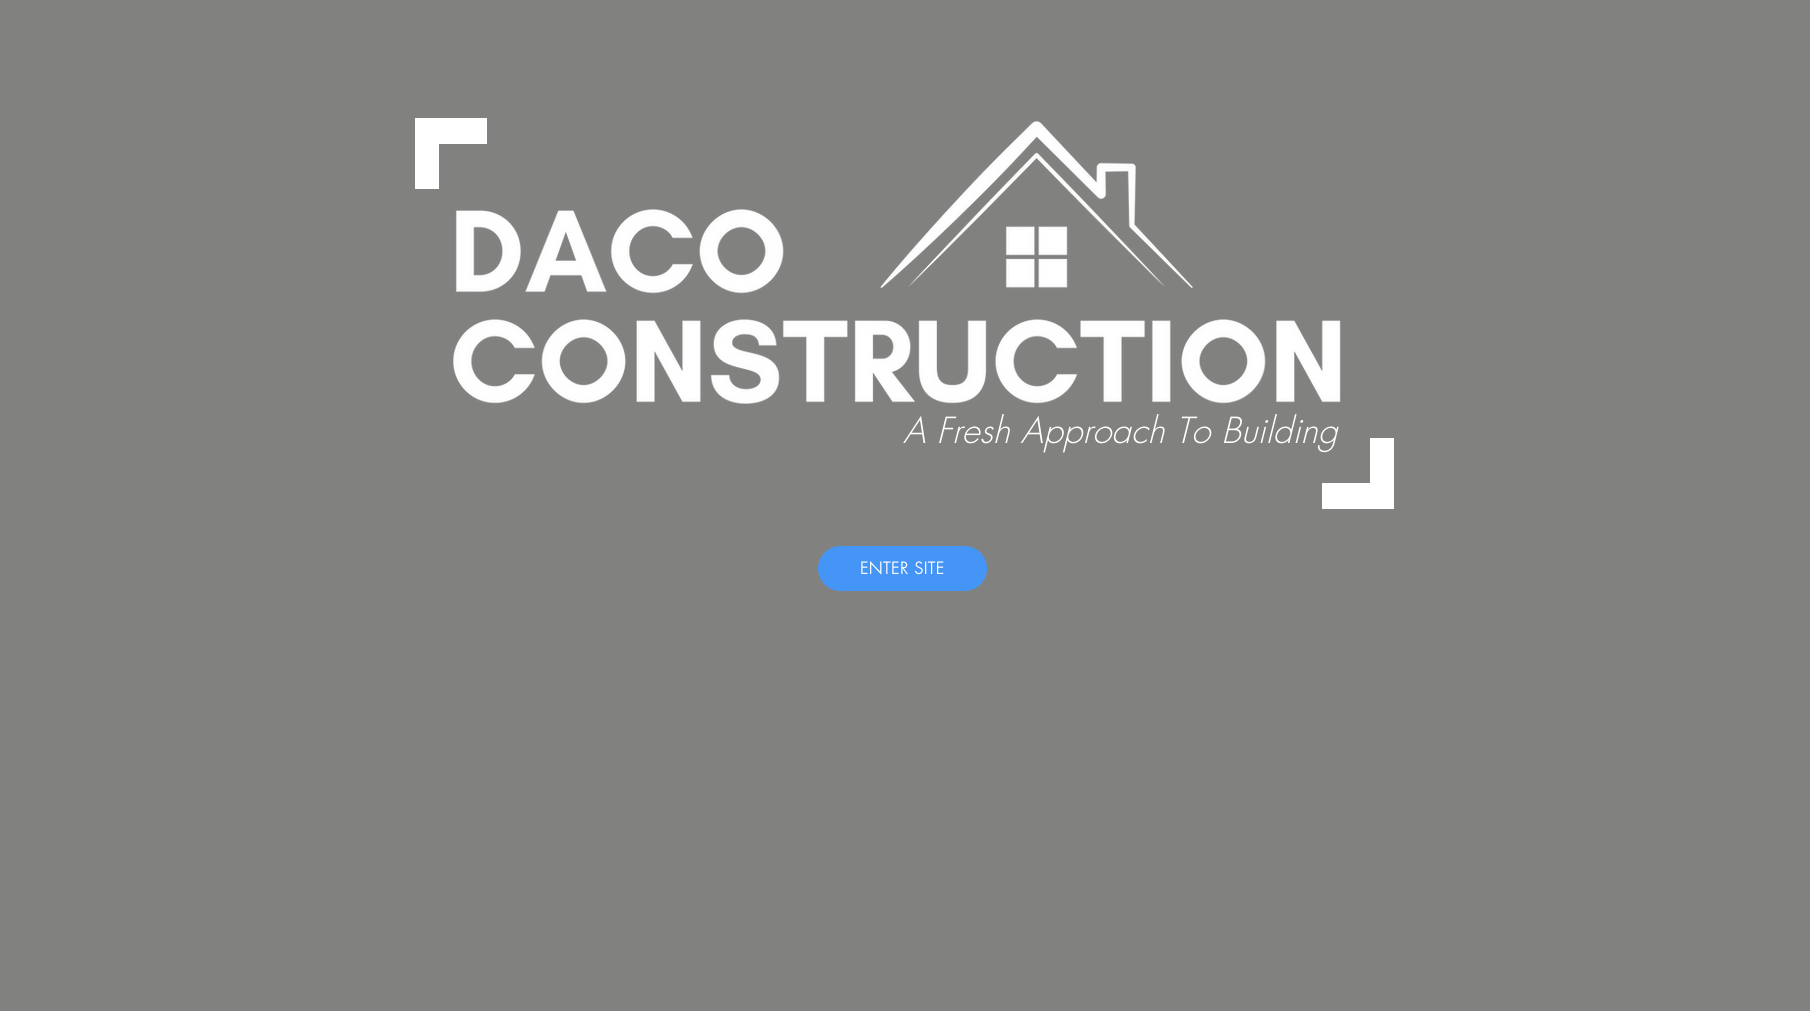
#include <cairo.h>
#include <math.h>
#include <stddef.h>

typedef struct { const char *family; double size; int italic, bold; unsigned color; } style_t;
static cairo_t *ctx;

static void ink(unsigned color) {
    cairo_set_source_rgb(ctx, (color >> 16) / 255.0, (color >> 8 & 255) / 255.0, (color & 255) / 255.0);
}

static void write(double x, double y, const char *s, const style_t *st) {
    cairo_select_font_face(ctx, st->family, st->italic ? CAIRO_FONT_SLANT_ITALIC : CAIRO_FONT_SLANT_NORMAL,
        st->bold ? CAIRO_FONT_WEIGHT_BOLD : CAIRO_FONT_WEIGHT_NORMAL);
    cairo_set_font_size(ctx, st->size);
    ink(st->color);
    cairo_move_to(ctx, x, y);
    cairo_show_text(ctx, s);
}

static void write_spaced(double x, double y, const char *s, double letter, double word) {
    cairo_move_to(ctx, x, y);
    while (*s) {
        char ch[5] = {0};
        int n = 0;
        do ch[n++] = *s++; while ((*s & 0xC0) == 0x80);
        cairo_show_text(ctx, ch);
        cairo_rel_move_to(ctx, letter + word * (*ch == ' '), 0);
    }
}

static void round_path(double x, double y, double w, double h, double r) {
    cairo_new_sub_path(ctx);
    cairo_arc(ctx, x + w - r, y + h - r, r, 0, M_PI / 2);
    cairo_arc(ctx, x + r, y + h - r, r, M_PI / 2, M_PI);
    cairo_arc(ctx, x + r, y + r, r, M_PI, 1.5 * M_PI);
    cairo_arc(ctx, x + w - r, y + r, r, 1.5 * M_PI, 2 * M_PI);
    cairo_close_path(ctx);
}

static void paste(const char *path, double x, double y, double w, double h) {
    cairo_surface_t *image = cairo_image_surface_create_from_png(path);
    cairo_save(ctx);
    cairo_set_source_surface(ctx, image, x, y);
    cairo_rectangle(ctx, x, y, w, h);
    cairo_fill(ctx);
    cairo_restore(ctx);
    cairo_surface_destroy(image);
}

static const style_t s1 = {"futura Light", 35, 1, 0, 0xffffff};

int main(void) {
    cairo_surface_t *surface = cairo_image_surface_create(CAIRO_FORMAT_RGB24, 1810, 1011);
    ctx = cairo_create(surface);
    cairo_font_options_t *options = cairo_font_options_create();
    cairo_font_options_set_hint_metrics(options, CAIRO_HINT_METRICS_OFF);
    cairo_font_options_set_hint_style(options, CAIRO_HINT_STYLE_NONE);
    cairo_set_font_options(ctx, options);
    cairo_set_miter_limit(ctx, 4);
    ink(0x818180);
    cairo_paint(ctx);
    paste("pic1.png", 453, 121, 888, 283);
    ink(0xffffff);
    cairo_new_path(ctx);
    cairo_move_to(ctx, 439, 144);
    cairo_line_to(ctx, 439, 189);
    cairo_line_to(ctx, 415, 189);
    cairo_line_to(ctx, 415, 118);
    cairo_line_to(ctx, 487, 118);
    cairo_line_to(ctx, 487, 144);
    cairo_close_path(ctx);
    cairo_fill(ctx);
    write(903, 443, "A Fresh Approach To Building", &s1);
    cairo_new_path(ctx);
    cairo_move_to(ctx, 1370, 483);
    cairo_line_to(ctx, 1370, 438);
    cairo_line_to(ctx, 1394, 438);
    cairo_line_to(ctx, 1394, 509);
    cairo_line_to(ctx, 1322, 509);
    cairo_line_to(ctx, 1322, 483);
    cairo_close_path(ctx);
    cairo_fill(ctx);
    ink(0x4595f7);
    round_path(818, 546, 169, 45, 22.5);
    cairo_fill(ctx);
    cairo_select_font_face(ctx, "futura", CAIRO_FONT_SLANT_NORMAL, CAIRO_FONT_WEIGHT_BOLD);
    cairo_set_font_size(ctx, 16);
    ink(0xffffff);
    write_spaced(860, 574, "ENTER SITE", 0.75, 0);
    cairo_surface_write_to_png(surface, "screenshot.png");
    cairo_font_options_destroy(options);
    cairo_destroy(ctx);
    cairo_surface_destroy(surface);
    return 0;
}
